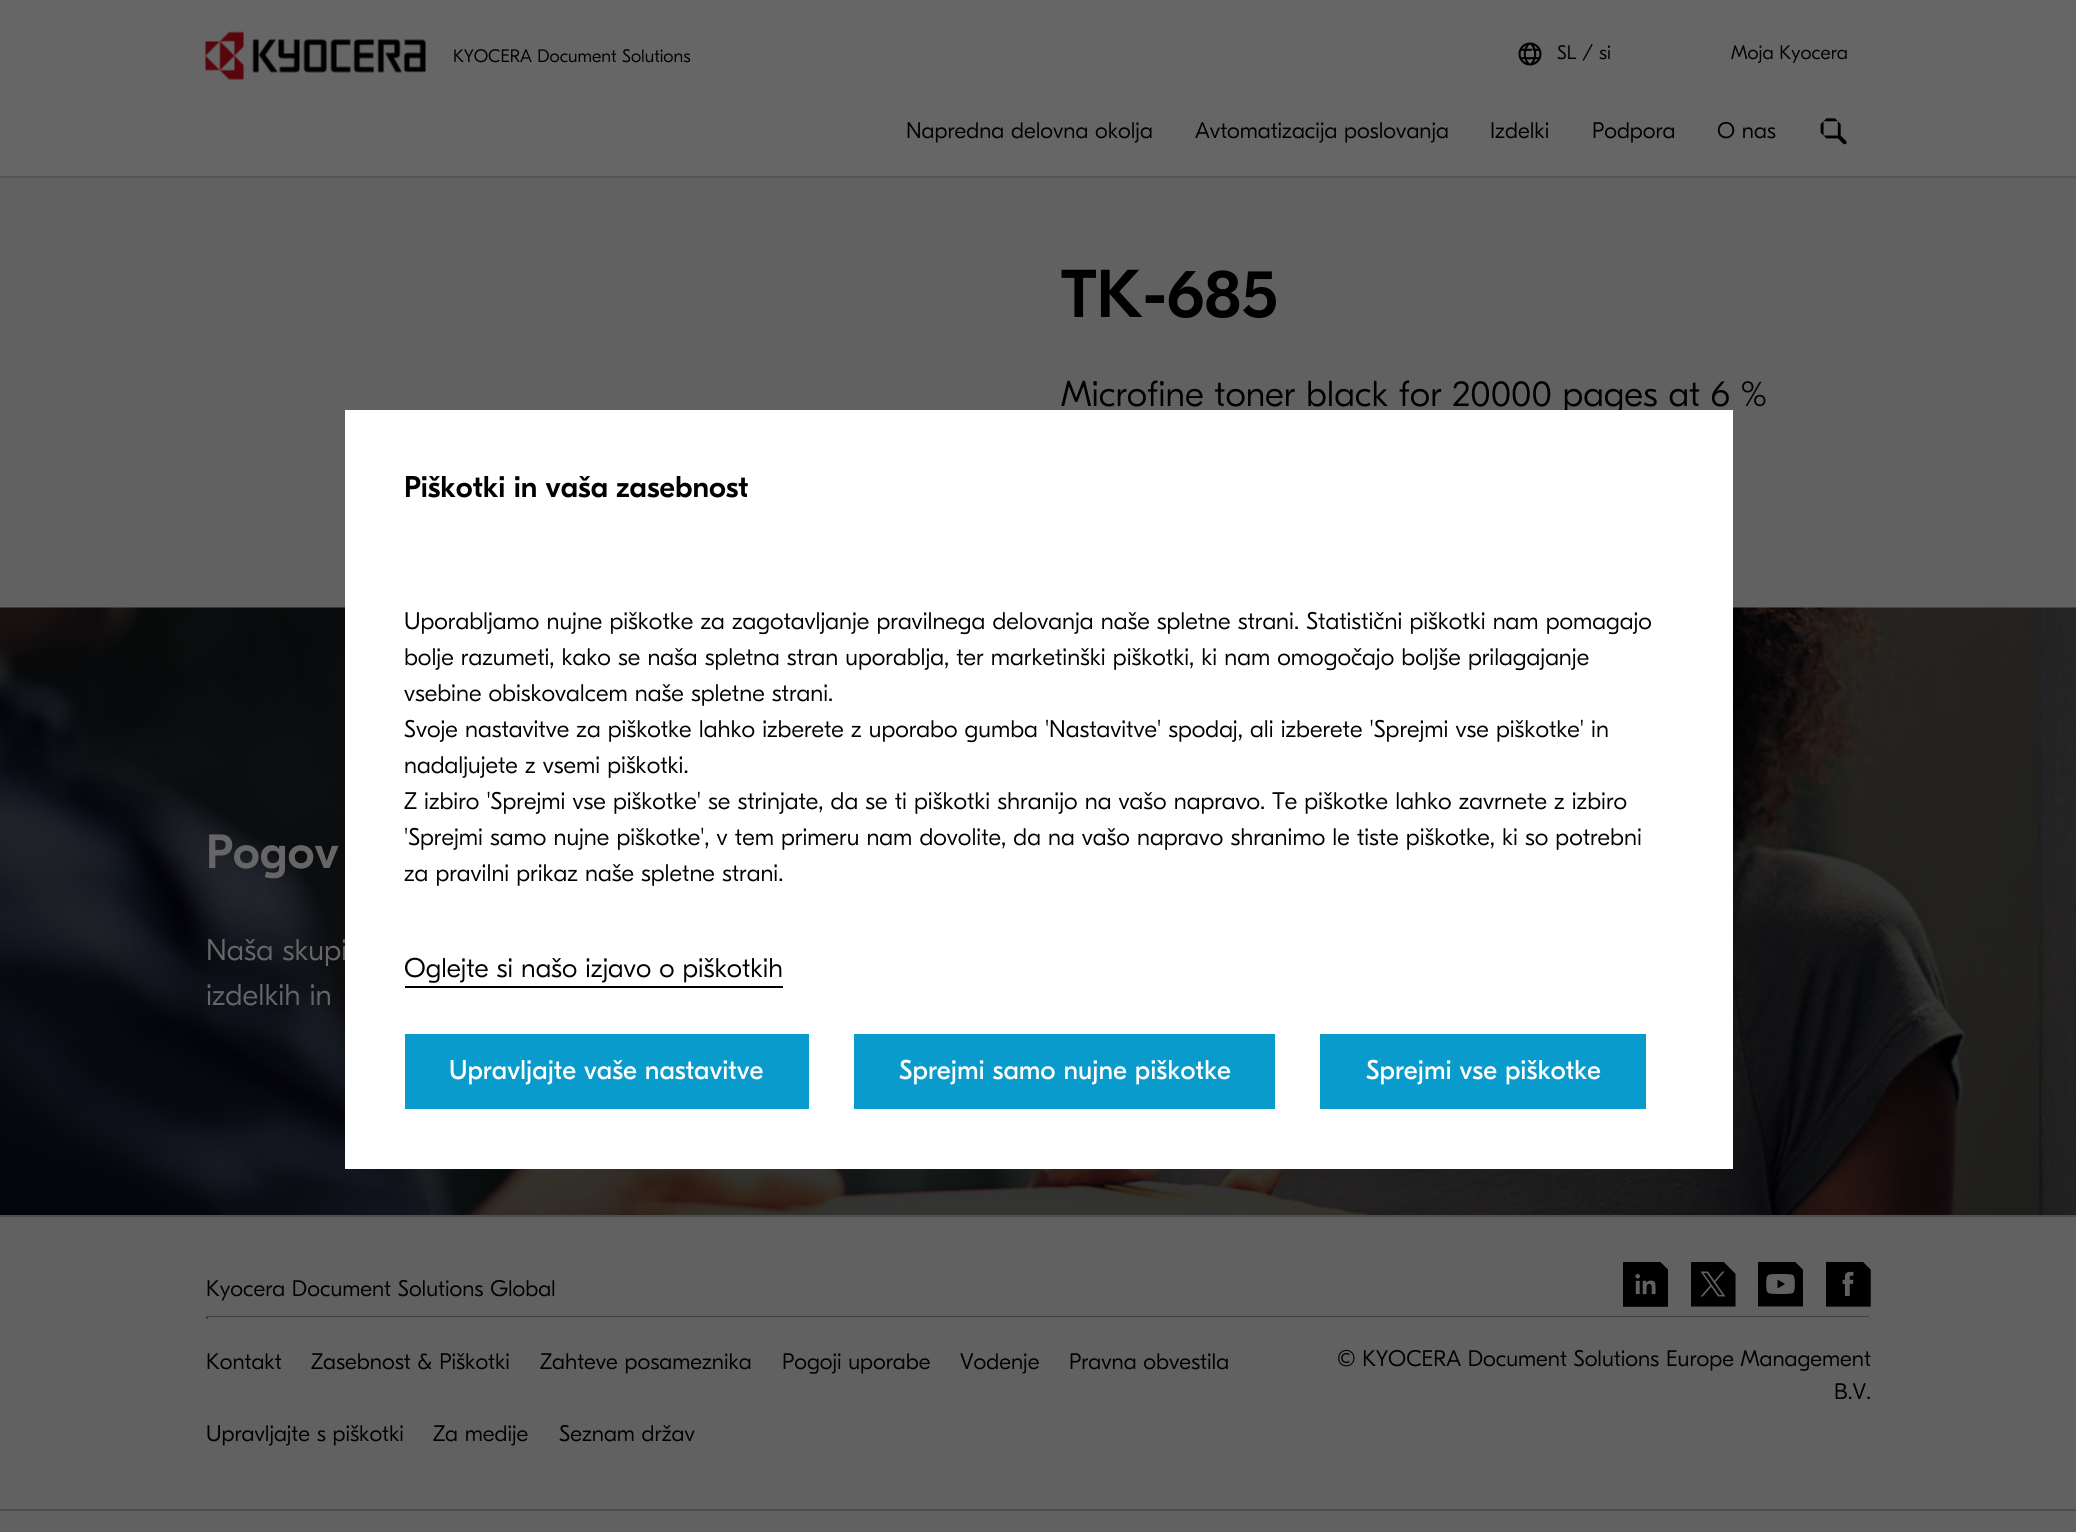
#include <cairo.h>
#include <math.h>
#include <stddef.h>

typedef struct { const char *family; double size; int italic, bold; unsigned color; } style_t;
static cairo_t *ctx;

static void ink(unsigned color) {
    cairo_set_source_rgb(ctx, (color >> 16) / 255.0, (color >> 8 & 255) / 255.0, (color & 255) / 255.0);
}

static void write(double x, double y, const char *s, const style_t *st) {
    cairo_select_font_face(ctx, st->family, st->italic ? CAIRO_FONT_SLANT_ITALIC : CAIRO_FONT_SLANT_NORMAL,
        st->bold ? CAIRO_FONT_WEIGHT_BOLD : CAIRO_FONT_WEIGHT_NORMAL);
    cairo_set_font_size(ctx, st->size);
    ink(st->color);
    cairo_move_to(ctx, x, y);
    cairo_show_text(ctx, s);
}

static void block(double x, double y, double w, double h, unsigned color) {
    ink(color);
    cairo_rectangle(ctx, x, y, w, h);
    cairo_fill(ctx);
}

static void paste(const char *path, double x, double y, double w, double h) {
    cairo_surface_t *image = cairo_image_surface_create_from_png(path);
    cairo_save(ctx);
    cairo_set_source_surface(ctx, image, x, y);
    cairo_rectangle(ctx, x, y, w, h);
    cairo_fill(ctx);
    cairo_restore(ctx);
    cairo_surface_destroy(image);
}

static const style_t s1 = {"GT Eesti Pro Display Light", 18, 0, 0, 0x000000};
static const style_t s2 = {"GT Eesti Pro Display Light", 19.5, 0, 0, 0x000000};
static const style_t s3 = {"GT Eesti Pro Display Light", 22.5, 0, 0, 0x000000};
static const style_t s4 = {"GT Eesti Pro Display Medium", 67.5, 0, 0, 0x000000};
static const style_t s5 = {"GT Eesti Pro Display Light", 36, 0, 0, 0x000000};
static const style_t s6 = {"GT Eesti Pro Display Medium", 48, 0, 0, 0x666666};
static const style_t s7 = {"GT Eesti Pro Display Light", 30, 0, 0, 0x666666};
static const style_t s8 = {"GT Eesti Pro Display Medium", 30, 0, 0, 0x000000};
static const style_t s9 = {"GT Eesti Pro Display Light", 24, 0, 0, 0x000000};
static const style_t s10 = {"GT Eesti Pro Display Light", 27, 0, 0, 0x000000};
static const style_t s11 = {"GT Eesti Pro Display", 27, 0, 0, 0xffffff};

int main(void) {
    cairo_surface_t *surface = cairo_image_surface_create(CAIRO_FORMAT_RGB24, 2076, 1532);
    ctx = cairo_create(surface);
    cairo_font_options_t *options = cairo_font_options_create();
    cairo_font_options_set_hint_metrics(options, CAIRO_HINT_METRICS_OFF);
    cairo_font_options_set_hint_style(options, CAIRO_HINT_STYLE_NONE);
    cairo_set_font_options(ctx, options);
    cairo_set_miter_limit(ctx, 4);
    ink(0x616161);
    cairo_paint(ctx);
    block(0, 0, 2076, 176, 0x666666);
    block(0, 176, 2076, 2, 0x555555);
    paste("pic1.png", 205, 31, 221, 49);
    write(453, 62, "KYOCERA Document Solutions", &s1);
    paste("pic2.png", 1518, 42, 24, 24);
    write(1557, 59, "SL / si", &s2);
    write(1731, 59, "Moja Kyocera", &s2);
    write(906, 138, "Napredna delovna okolja", &s3);
    write(1195, 138, "Avtomatizacija poslovanja", &s3);
    write(1490, 138, "Izdelki", &s3);
    write(1592, 138, "Podpora", &s3);
    write(1717, 138, "O nas", &s3);
    paste("pic3.png", 1820, 118, 27, 27);
    write(1061, 317, "TK-685", &s4);
    write(1061, 406, "Microfine toner black for 20000 pages at 6 %", &s5);
    paste("pic4.png", 0, 607, 2076, 608);
    write(206, 868, "Pogov", &s6);
    write(206, 960, "Naša skupi", &s7);
    write(206, 1005, "izdelkih in", &s7);
    block(0, 1215, 2076, 2, 0x4e4e4e);
    block(0, 1509, 2076, 2, 0x4e4e4e);
    write(206, 1296, "Kyocera Document Solutions Global", &s3);
    paste("pic5.png", 1623, 1262, 45, 45);
    paste("pic6.png", 1691, 1262, 45, 45);
    paste("pic7.png", 1758, 1262, 45, 45);
    paste("pic8.png", 1826, 1262, 45, 45);
    block(206, 1316, 1665, 1, 0x404040);
    block(1869, 1316, 2, 3, 0x5f5f5f);
    block(206, 1316, 2, 3, 0x404040);
    write(206, 1369, "Kontakt", &s3);
    write(311, 1369, "Zasebnost & Piškotki", &s3);
    write(540, 1369, "Zahteve posameznika", &s3);
    write(782, 1369, "Pogoji uporabe", &s3);
    write(960, 1369, "Vodenje", &s3);
    write(1069, 1369, "Pravna obvestila", &s3);
    write(206, 1441, "Upravljajte s piškotki", &s3);
    write(433, 1441, "Za medije", &s3);
    write(559, 1441, "Seznam držav", &s3);
    write(1337, 1366, "© KYOCERA Document Solutions Europe Management", &s3);
    write(1834, 1399, "B.V.", &s3);
    block(345, 410, 1388, 759, 0xffffff);
    write(404, 497, "Piškotki in vaša zasebnost", &s8);
    write(404, 629, "Uporabljamo nujne piškotke za zagotavljanje pravilnega delovanja naše spletne strani. Statistični piškotki nam pomagajo", &s9);
    write(404, 665, "bolje razumeti, kako se naša spletna stran uporablja, ter marketinški piškotki, ki nam omogočajo boljše prilagajanje", &s9);
    write(404, 701, "vsebine obiskovalcem naše spletne strani.", &s9);
    write(404, 737, "Svoje nastavitve za piškotke lahko izberete z uporabo gumba 'Nastavitve' spodaj, ali izberete 'Sprejmi vse piškotke' in", &s9);
    write(404, 773, "nadaljujete z vsemi piškotki.", &s9);
    write(404, 809, "Z izbiro 'Sprejmi vse piškotke' se strinjate, da se ti piškotki shranijo na vašo napravo. Te piškotke lahko zavrnete z izbiro", &s9);
    write(404, 845, "'Sprejmi samo nujne piškotke', v tem primeru nam dovolite, da na vašo napravo shranimo le tiste piškotke, ki so potrebni", &s9);
    write(404, 881, "za pravilni prikaz naše spletne strani.", &s9);
    write(404, 977, "Oglejte si našo izjavo o piškotkih", &s10);
    block(405, 986, 378, 2, 0x000000);
    block(405, 1034, 404, 75, 0x0a9bcd);
    write(449, 1079, "Upravljajte vaše nastavitve", &s11);
    block(854, 1034, 421, 75, 0x0a9bcd);
    write(899, 1079, "Sprejmi samo nujne piškotke", &s11);
    block(1320, 1034, 326, 75, 0x0a9bcd);
    write(1366, 1079, "Sprejmi vse piškotke", &s11);
    cairo_surface_write_to_png(surface, "screenshot.png");
    cairo_font_options_destroy(options);
    cairo_destroy(ctx);
    cairo_surface_destroy(surface);
    return 0;
}
